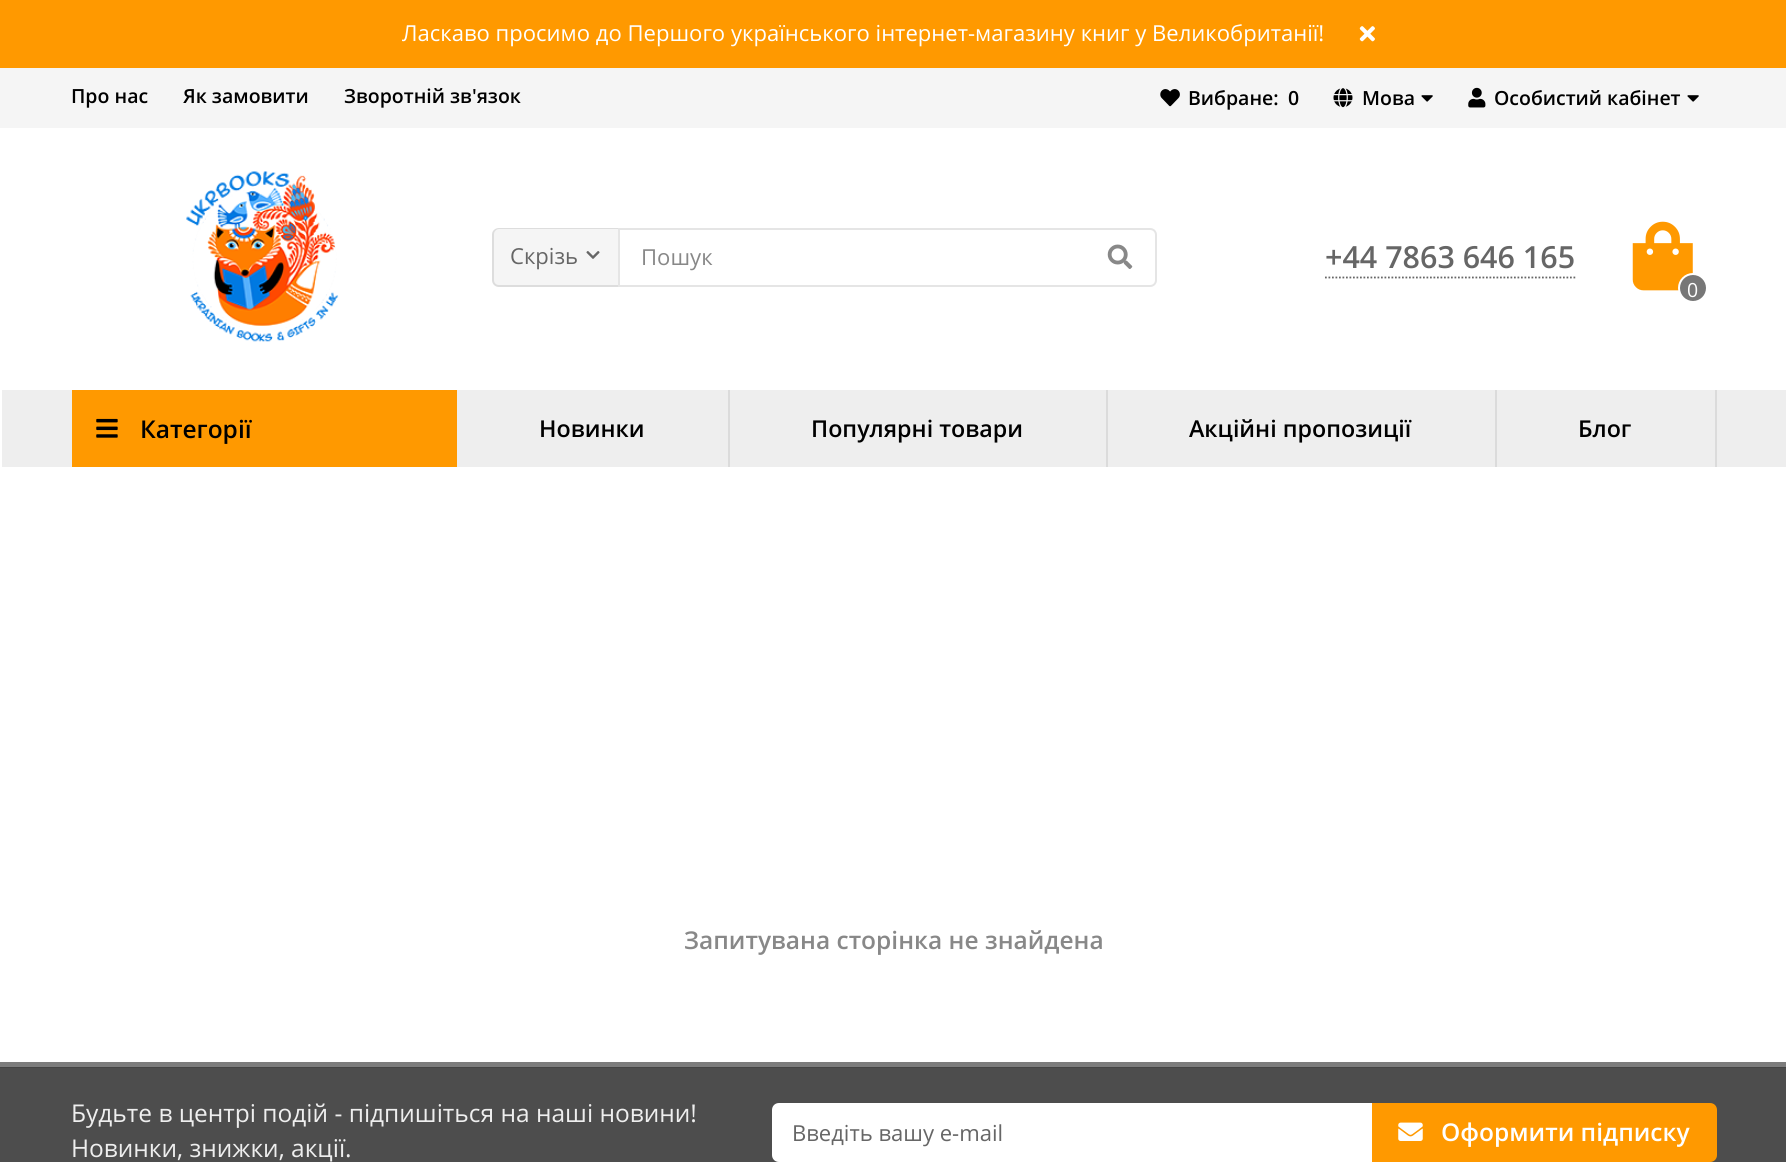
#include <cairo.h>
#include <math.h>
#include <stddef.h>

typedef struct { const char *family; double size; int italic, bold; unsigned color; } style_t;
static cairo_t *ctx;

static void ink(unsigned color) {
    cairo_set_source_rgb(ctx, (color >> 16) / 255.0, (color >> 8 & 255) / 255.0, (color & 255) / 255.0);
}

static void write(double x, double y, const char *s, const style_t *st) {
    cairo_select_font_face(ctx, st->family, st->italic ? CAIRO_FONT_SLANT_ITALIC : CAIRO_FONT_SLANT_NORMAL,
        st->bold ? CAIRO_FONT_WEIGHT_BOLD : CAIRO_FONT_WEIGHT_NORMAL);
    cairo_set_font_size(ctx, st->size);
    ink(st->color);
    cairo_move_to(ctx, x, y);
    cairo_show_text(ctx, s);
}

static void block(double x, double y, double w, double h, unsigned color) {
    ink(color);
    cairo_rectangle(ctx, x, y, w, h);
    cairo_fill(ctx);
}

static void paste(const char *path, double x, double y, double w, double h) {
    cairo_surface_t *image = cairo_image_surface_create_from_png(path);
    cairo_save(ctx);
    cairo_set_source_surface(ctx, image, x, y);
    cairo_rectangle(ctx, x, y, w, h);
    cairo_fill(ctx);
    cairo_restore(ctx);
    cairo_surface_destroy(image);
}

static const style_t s1 = {"Open Sans", 22.05, 0, 0, 0xffffff};
static const style_t s2 = {"Open Sans SemiBold", 19.5, 0, 0, 0x000000};
static const style_t s3 = {"Open Sans", 22.05, 0, 0, 0x666666};
static const style_t s4 = {"Open Sans", 22.05, 0, 0, 0x888888};
static const style_t s5 = {"Open Sans SemiBold", 30.5, 0, 0, 0x666666};
static const style_t s6 = {"Open Sans", 19.5, 0, 0, 0xffffff};
static const style_t s7 = {"Open Sans SemiBold", 24.5, 0, 0, 0x000000};
static const style_t s8 = {"Open Sans SemiBold", 23.25, 0, 0, 0x000000};
static const style_t s9 = {"Open Sans SemiBold", 24.5, 0, 0, 0x888888};
static const style_t s10 = {"Open Sans", 24.5, 0, 0, 0xeeeeee};
static const style_t s11 = {"Open Sans SemiBold", 24.5, 0, 0, 0xffffff};

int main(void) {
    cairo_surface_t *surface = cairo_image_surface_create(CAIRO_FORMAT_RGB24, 1786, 1162);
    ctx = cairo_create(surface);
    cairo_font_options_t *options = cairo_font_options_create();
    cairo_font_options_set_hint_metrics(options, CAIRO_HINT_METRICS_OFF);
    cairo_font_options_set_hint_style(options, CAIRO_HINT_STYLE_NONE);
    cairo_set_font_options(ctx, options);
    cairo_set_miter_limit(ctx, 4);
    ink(0xffffff);
    cairo_paint(ctx);
    block(0, 0, 1786, 68, 0xff9900);
    write(402, 41, "Ласкаво просимо до Першого українського інтернет-магазину книг у Великобританії!", &s1);
    paste("pic1.png", 1359, 26, 16, 16);
    block(0, 68, 1786, 60, 0xf5f5f5);
    write(71, 103, "Про нас", &s2);
    write(183, 103, "Як замовити", &s2);
    write(344, 103, "Зворотній зв'язок", &s2);
    paste("pic2.png", 1160, 89, 20, 18);
    write(1188, 105, "Вибране:", &s2);
    write(1288, 105, "0", &s2);
    paste("pic3.png", 1333, 88, 20, 20);
    write(1362, 105, "Мова", &s2);
    paste("pic4.png", 1421, 95, 12, 7);
    paste("pic5.png", 1468, 87, 18, 21);
    write(1494, 105, "Особистий кабінет", &s2);
    paste("pic4.png", 1687, 95, 12, 7);
    paste("pic6.png", 186, 171, 153, 171);
    ink(0xf5f5f5);
    cairo_new_path(ctx);
    cairo_move_to(ctx, 499, 228);
    cairo_line_to(ctx, 618, 228);
    cairo_line_to(ctx, 618, 287);
    cairo_line_to(ctx, 499, 287);
    cairo_curve_to(ctx, 495, 287, 492, 284, 492, 280);
    cairo_line_to(ctx, 492, 235);
    cairo_curve_to(ctx, 492, 231, 495, 228, 499, 228);
    cairo_close_path(ctx);
    cairo_fill(ctx);
    cairo_set_source_rgba(ctx, 0, 0, 0, 0.1);
    cairo_set_fill_rule(ctx, CAIRO_FILL_RULE_EVEN_ODD);
    cairo_new_path(ctx);
    cairo_move_to(ctx, 499, 228);
    cairo_line_to(ctx, 618, 228);
    cairo_line_to(ctx, 618, 287);
    cairo_line_to(ctx, 499, 287);
    cairo_curve_to(ctx, 495, 287, 492, 284, 492, 280);
    cairo_line_to(ctx, 492, 234);
    cairo_curve_to(ctx, 492, 231, 495, 228, 499, 228);
    cairo_close_path(ctx);
    cairo_move_to(ctx, 499, 229);
    cairo_line_to(ctx, 618, 229);
    cairo_line_to(ctx, 618, 285);
    cairo_line_to(ctx, 499, 285);
    cairo_curve_to(ctx, 496, 285, 494, 283, 494, 280);
    cairo_line_to(ctx, 494, 234);
    cairo_curve_to(ctx, 494, 232, 496, 229, 499, 229);
    cairo_close_path(ctx);
    cairo_fill(ctx);
    write(510, 264, "Скрізь", &s3);
    paste("pic7.png", 586, 251, 14, 8);
    cairo_new_path(ctx);
    cairo_move_to(ctx, 619, 229);
    cairo_line_to(ctx, 1150, 229);
    cairo_curve_to(ctx, 1153.5, 229, 1156, 231.5, 1156, 235);
    cairo_line_to(ctx, 1156, 280);
    cairo_curve_to(ctx, 1156, 283.5, 1153.5, 286, 1150, 286);
    cairo_line_to(ctx, 619, 286);
    cairo_close_path(ctx);
    ink(0xe5e5e5);
    cairo_stroke(ctx);
    write(641, 265, "Пошук", &s4);
    paste("pic8.png", 1107, 244, 26, 25);
    write(1325, 268, "+44 7863 646 165", &s5);
    cairo_new_path(ctx);
    cairo_move_to(ctx, 1325, 277.5);
    cairo_line_to(ctx, 1577, 277.5);
    cairo_set_line_width(ctx, 1.8);
    cairo_set_dash(ctx, (double[]){1.75, 1.75}, 2, 0);
    cairo_stroke(ctx);
    paste("pic9.png", 1632, 221, 61, 70);
    ink(0x777777);
    cairo_arc(ctx, 1693, 288, 14, 0, 2 * M_PI);
    cairo_fill_preserve(ctx);
    ink(0xffffff);
    cairo_set_line_width(ctx, 2);
    cairo_set_dash(ctx, NULL, 0, 0);
    cairo_stroke(ctx);
    write(1687, 297, "0", &s6);
    block(2, 390, 1784, 77, 0xeeeeee);
    block(72, 390, 385, 77, 0xff9900);
    paste("pic10.png", 96, 418, 22, 20);
    write(140, 438, "Категорії", &s7);
    write(539, 437, "Новинки", &s8);
    block(728, 390, 2, 77, 0xdbdbdb);
    write(811, 437, "Популярні товари", &s8);
    block(1106, 390, 2, 77, 0xdbdbdb);
    write(1189, 437, "Акційні пропозиції", &s8);
    block(1495, 390, 2, 77, 0xdbdbdb);
    block(1715, 390, 2, 77, 0xdbdbdb);
    write(1578, 437, "Блог", &s8);
    write(684, 949, "Запитувана сторінка не знайдена", &s9);
    block(0, 1067, 1786, 1, 0x444444);
    block(0, 1062, 1786, 5, 0x7c7c7c);
    block(0, 1068, 1786, 94, 0x4d4d4d);
    write(71, 1122, "Будьте в центрі подій - підпишіться на наші новини!", &s10);
    write(71, 1157, "Новинки, знижки, акції.", &s10);
    ink(0xffffff);
    cairo_new_path(ctx);
    cairo_move_to(ctx, 779, 1103);
    cairo_line_to(ctx, 1372, 1103);
    cairo_line_to(ctx, 1372, 1162);
    cairo_line_to(ctx, 779, 1162);
    cairo_curve_to(ctx, 775, 1162, 772, 1159, 772, 1155);
    cairo_line_to(ctx, 772, 1110);
    cairo_curve_to(ctx, 772, 1106, 775, 1103, 779, 1103);
    cairo_close_path(ctx);
    cairo_fill(ctx);
    write(792, 1141, "Введіть вашу e-mail", &s3);
    ink(0xff9900);
    cairo_new_path(ctx);
    cairo_move_to(ctx, 1372, 1103);
    cairo_line_to(ctx, 1710, 1103);
    cairo_curve_to(ctx, 1714, 1103, 1717, 1106, 1717, 1110);
    cairo_line_to(ctx, 1717, 1155);
    cairo_curve_to(ctx, 1717, 1159, 1714, 1162, 1710, 1162);
    cairo_line_to(ctx, 1372, 1162);
    cairo_close_path(ctx);
    cairo_fill(ctx);
    paste("pic11.png", 1398, 1122, 25, 19);
    write(1441, 1141, "Оформити підписку", &s11);
    cairo_surface_write_to_png(surface, "screenshot.png");
    cairo_font_options_destroy(options);
    cairo_destroy(ctx);
    cairo_surface_destroy(surface);
    return 0;
}
